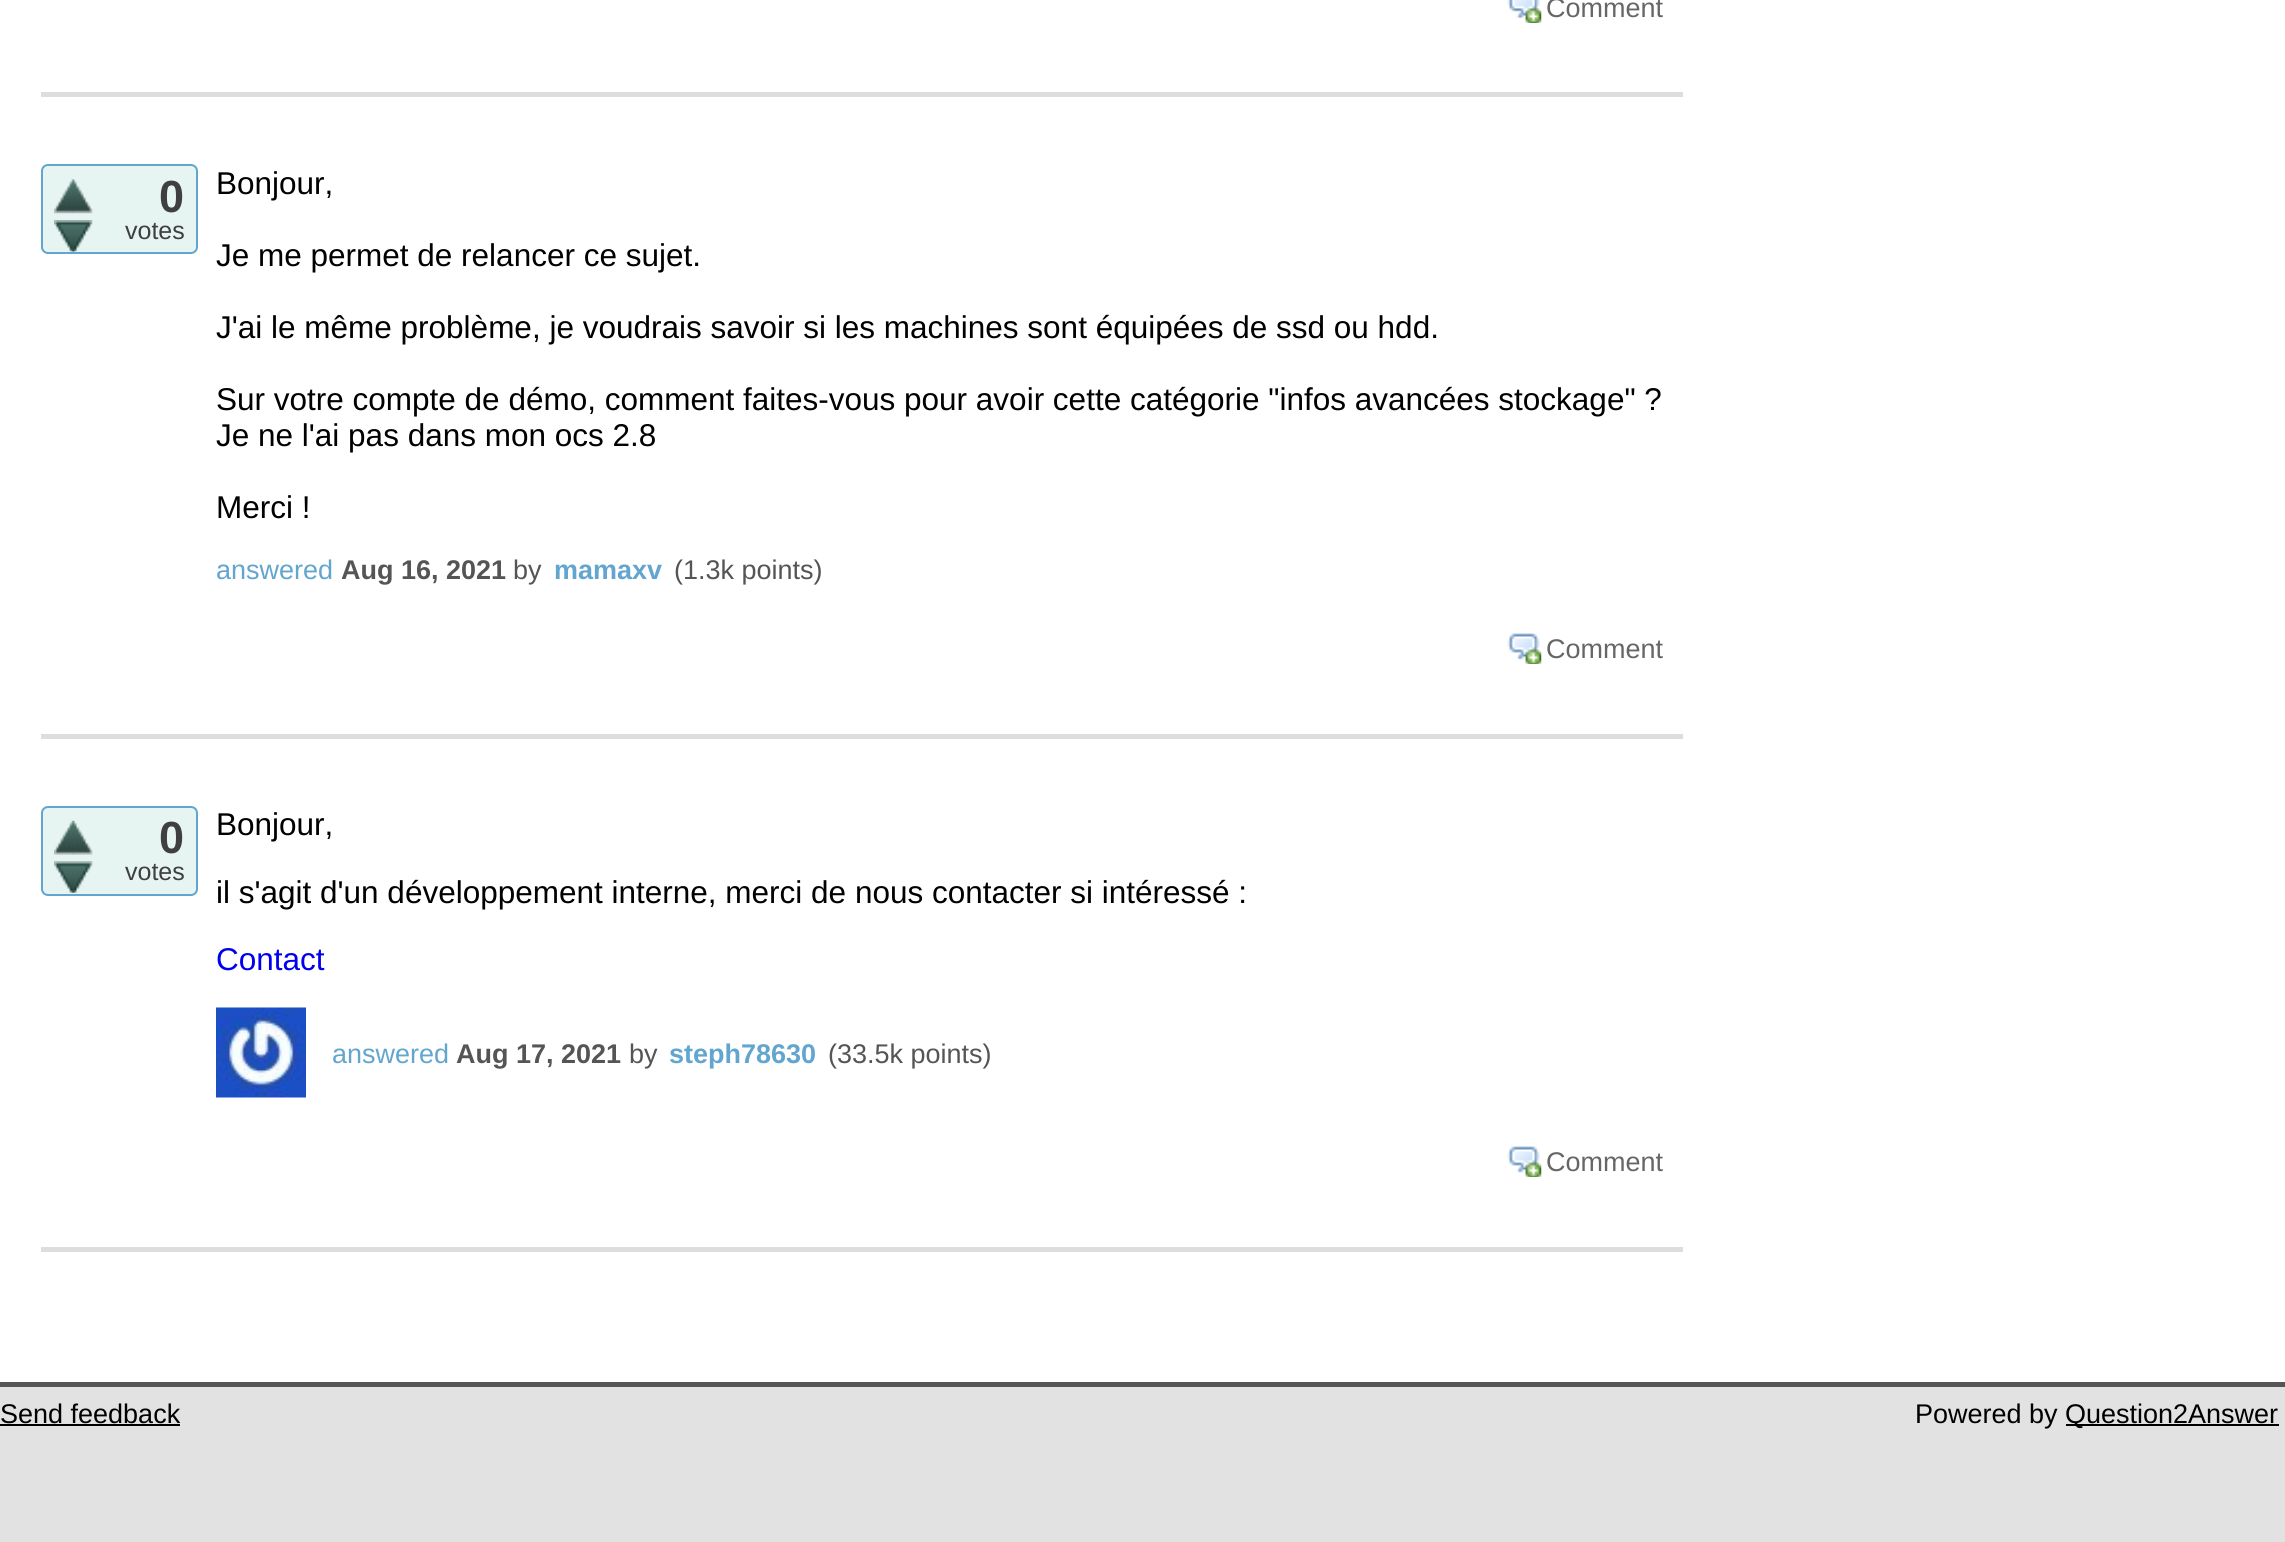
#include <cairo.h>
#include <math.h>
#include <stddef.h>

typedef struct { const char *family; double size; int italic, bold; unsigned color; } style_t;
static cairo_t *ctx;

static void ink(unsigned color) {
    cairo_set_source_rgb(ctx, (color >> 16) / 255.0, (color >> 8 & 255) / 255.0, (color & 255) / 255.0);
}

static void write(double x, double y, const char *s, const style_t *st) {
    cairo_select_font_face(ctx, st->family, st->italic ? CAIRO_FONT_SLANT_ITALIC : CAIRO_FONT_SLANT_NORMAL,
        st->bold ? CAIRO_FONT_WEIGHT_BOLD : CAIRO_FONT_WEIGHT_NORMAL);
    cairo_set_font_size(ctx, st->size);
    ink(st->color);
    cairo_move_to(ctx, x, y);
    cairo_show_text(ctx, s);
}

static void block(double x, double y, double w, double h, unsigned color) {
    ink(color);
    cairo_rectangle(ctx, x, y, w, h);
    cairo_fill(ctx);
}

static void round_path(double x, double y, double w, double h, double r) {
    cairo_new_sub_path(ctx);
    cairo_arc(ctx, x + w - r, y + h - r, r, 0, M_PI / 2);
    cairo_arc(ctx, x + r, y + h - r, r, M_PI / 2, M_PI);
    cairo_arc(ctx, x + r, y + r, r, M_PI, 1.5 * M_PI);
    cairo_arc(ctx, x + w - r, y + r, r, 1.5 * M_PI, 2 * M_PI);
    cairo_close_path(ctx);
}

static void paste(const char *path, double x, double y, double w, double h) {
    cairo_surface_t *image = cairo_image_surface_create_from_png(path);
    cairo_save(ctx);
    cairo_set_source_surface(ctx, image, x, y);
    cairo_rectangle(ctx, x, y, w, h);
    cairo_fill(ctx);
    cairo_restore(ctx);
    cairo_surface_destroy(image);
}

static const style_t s1 = {"Liberation Sans", 27, 0, 0, 0x666666};
static const style_t s2 = {"Liberation Sans", 45, 0, 1, 0x3f3f3f};
static const style_t s3 = {"Liberation Sans", 25, 0, 0, 0x3f3f3f};
static const style_t s4 = {"Liberation Sans", 31.5, 0, 0, 0x000000};
static const style_t s5 = {"Liberation Sans", 27, 0, 0, 0x62a5ce};
static const style_t s6 = {"Liberation Sans", 27, 0, 1, 0x555555};
static const style_t s7 = {"Liberation Sans", 27, 0, 0, 0x555555};
static const style_t s8 = {"Liberation Sans", 27, 0, 1, 0x62a5ce};
static const style_t s9 = {"Liberation Sans", 31.5, 0, 0, 0x0000ee};
static const style_t s10 = {"Liberation Sans", 27, 0, 0, 0x000000};

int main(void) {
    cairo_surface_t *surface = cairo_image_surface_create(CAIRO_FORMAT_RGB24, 2285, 1542);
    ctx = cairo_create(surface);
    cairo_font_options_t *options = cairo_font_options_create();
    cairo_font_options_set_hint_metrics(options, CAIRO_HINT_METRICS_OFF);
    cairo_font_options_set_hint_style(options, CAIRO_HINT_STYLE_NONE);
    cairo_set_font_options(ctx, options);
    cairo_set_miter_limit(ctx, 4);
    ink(0xffffff);
    cairo_paint(ctx);
    block(41, 92, 1642, 5, 0xdddddd);
    paste("pic1.png", 1507, 0, 35, 23);
    write(1546, 17, "Comment", &s1);
    block(41, 734, 1642, 5, 0xdddddd);
    ink(0xe7f5f2);
    round_path(42, 165, 155, 88, 6);
    cairo_fill_preserve(ctx);
    ink(0x62a5ce);
    cairo_stroke(ctx);
    paste("pic2.png", 54, 179, 39, 35);
    paste("pic3.png", 54, 220, 39, 32);
    write(159, 212, "0", &s2);
    write(125, 239, "votes", &s3);
    write(216, 194, "Bonjour,", &s4);
    write(216, 266, "Je me permet de relancer ce sujet.", &s4);
    write(216, 338, "J'ai le même problème, je voudrais savoir si les machines sont équipées de ssd ou hdd.", &s4);
    write(216, 410, "Sur votre compte de démo, comment faites-vous pour avoir cette catégorie \"infos avancées stockage\" ?", &s4);
    write(216, 446, "Je ne l'ai pas dans mon ocs 2.8", &s4);
    write(216, 518, "Merci !", &s4);
    write(216, 579, "answered", &s5);
    write(341, 579, "Aug 16, 2021", &s6);
    write(513, 579, "by", &s7);
    write(554, 579, "mamaxv", &s8);
    write(674, 579, "(1.3k points)", &s7);
    paste("pic4.png", 1507, 633, 35, 31);
    write(1546, 658, "Comment", &s1);
    block(41, 1247, 1642, 5, 0xdddddd);
    ink(0xe7f5f2);
    round_path(42, 807, 155, 88, 6);
    cairo_fill_preserve(ctx);
    ink(0x62a5ce);
    cairo_stroke(ctx);
    paste("pic5.png", 54, 820, 39, 35);
    paste("pic6.png", 54, 861, 39, 32);
    write(159, 853, "0", &s2);
    write(125, 880, "votes", &s3);
    write(216, 835, "Bonjour,", &s4);
    write(216, 903, "il s'agit d'un développement interne, merci de nous contacter si intéressé :", &s4);
    write(216, 970, "Contact", &s9);
    paste("pic7.png", 216, 1007, 90, 91);
    write(332, 1063, "answered", &s5);
    write(456, 1063, "Aug 17, 2021", &s6);
    write(629, 1063, "by", &s7);
    write(669, 1063, "steph78630", &s8);
    write(828, 1063, "(33.5k points)", &s7);
    paste("pic4.png", 1507, 1146, 35, 31);
    write(1546, 1171, "Comment", &s1);
    block(0, 1387, 2285, 155, 0xe2e2e2);
    block(0, 1382, 2285, 5, 0x555555);
    write(0, 1423, "Send feedback", &s10);
    block(0, 1424, 180, 2, 0x000000);
    write(1915, 1423, "Powered by", &s10);
    block(2066, 1424, 213, 2, 0x000000);
    write(2065, 1423, "Question2Answer", &s10);
    cairo_surface_write_to_png(surface, "screenshot.png");
    cairo_font_options_destroy(options);
    cairo_destroy(ctx);
    cairo_surface_destroy(surface);
    return 0;
}
